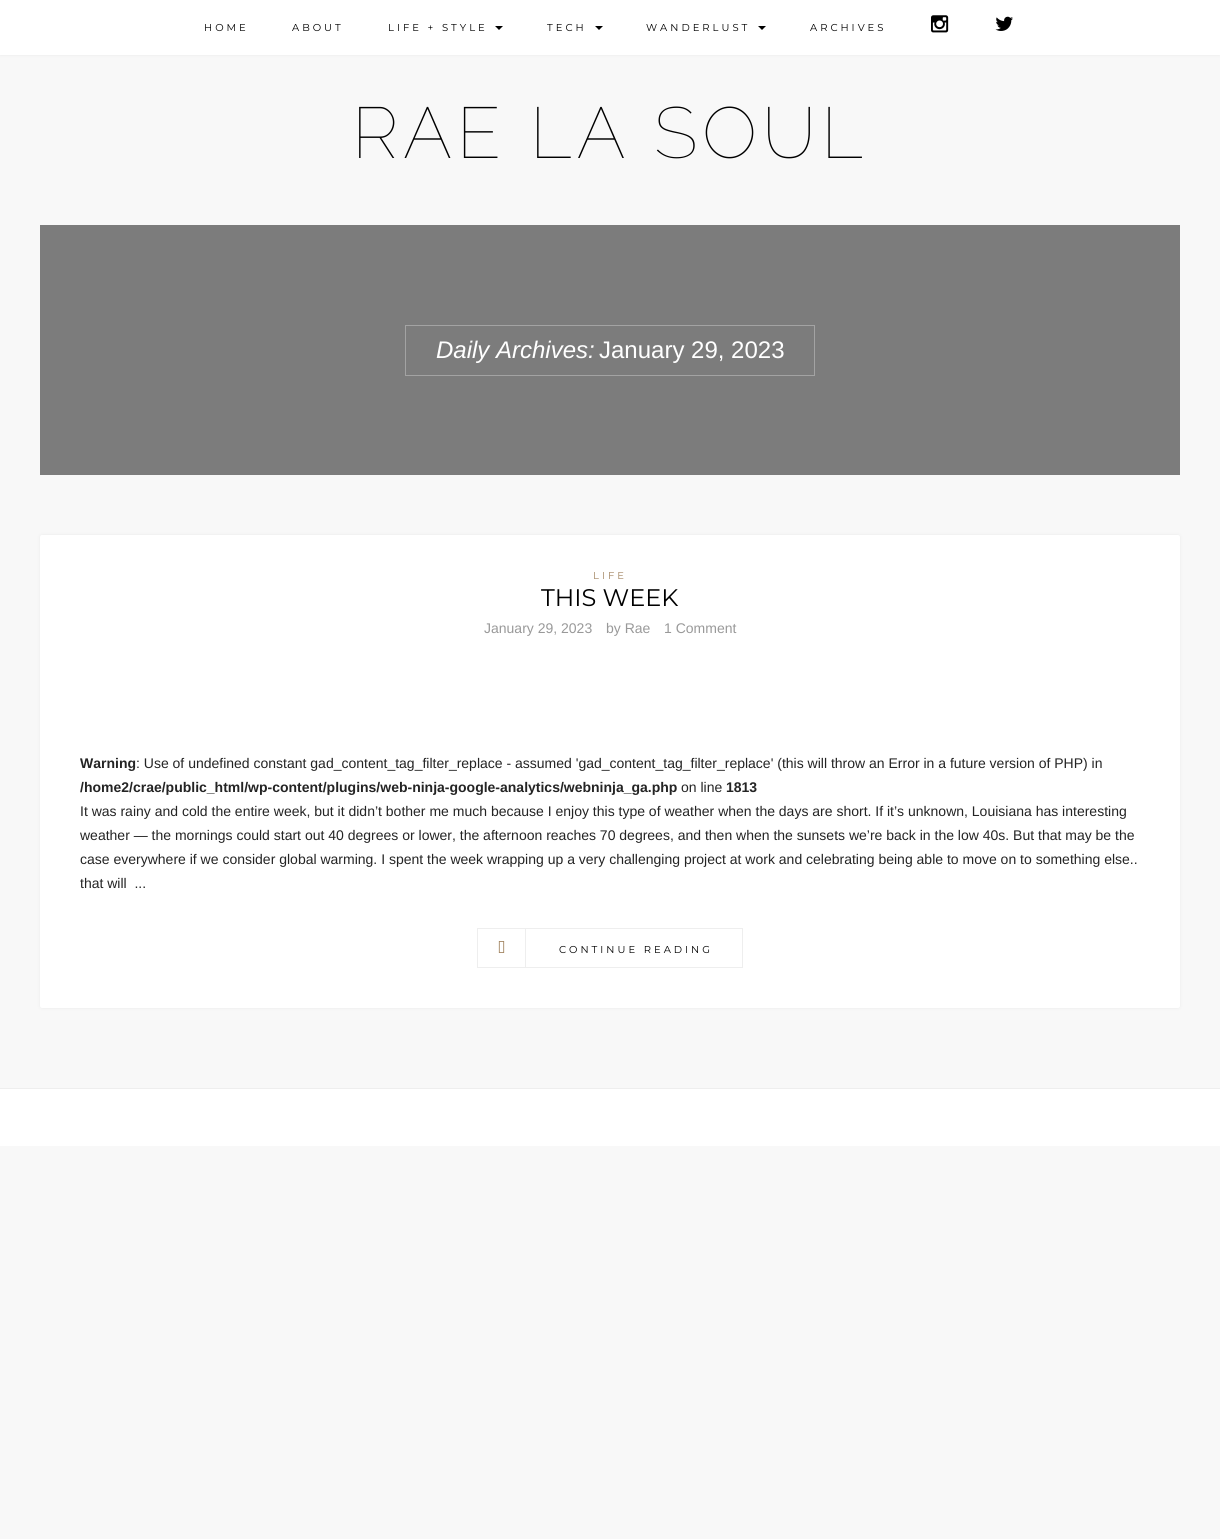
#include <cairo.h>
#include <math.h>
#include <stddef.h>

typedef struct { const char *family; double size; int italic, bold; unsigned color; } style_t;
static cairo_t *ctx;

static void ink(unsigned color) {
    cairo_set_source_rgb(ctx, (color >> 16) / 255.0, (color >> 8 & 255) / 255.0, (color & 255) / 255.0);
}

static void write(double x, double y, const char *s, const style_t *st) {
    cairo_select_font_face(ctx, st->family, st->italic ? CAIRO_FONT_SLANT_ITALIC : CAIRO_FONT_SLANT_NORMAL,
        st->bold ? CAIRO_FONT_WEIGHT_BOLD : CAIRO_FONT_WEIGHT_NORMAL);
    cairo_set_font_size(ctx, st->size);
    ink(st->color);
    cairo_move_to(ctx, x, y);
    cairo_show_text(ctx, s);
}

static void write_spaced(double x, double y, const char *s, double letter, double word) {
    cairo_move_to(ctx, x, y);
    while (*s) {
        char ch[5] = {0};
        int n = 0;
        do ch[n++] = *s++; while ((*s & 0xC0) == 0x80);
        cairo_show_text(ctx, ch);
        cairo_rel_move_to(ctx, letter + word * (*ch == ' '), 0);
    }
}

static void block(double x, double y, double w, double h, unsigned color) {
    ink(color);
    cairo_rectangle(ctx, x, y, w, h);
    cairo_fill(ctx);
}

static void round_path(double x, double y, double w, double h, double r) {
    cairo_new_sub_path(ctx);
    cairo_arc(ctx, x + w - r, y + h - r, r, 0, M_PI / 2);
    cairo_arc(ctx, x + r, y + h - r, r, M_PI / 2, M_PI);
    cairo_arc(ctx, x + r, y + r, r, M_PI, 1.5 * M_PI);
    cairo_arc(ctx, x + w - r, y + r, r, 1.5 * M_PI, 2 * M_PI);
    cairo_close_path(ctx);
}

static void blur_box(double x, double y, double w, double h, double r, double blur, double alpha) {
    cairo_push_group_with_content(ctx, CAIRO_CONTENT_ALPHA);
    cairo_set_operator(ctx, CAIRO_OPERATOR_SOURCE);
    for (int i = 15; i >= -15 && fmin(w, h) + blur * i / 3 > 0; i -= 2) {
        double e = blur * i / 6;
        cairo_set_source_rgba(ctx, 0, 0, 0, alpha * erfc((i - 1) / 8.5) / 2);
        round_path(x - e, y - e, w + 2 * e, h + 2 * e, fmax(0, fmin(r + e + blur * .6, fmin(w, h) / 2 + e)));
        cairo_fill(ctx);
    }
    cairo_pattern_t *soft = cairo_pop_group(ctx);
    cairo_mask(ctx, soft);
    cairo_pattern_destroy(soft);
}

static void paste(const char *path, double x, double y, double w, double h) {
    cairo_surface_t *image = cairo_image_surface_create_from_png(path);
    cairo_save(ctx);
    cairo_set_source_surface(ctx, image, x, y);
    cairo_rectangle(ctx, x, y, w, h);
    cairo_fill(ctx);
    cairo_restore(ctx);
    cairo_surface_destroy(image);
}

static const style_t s1 = {"Liberation Sans", 24, 1, 0, 0xffffff};
static const style_t s2 = {"Liberation Sans", 24, 0, 0, 0xffffff};
static const style_t s3 = {"Montserrat", 24, 0, 0, 0x000000};
static const style_t s4 = {"Liberation Sans", 14, 0, 0, 0x999999};
static const style_t s5 = {"Liberation Sans", 14, 0, 1, 0x242424};
static const style_t s6 = {"Liberation Sans", 14, 0, 0, 0x242424};

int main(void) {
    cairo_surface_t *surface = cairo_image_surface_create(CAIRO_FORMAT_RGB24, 1220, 1539);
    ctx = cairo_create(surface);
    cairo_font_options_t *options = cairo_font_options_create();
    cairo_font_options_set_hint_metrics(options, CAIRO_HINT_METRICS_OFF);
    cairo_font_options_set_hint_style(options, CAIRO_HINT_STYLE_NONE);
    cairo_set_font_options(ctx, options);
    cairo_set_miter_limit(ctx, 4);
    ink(0xf8f8f8);
    cairo_paint(ctx);
    ink(0xdddddd);
    blur_box(0, 0, 1220, 55, 0, 1.5, 0.5);
    block(0, 0, 1220, 55, 0xffffff);
    cairo_select_font_face(ctx, "Montserrat", CAIRO_FONT_SLANT_NORMAL, CAIRO_FONT_WEIGHT_NORMAL);
    cairo_set_font_size(ctx, 10);
    ink(0x000000);
    write_spaced(204, 31, "HOME", 3, 0);
    write_spaced(292, 31, "ABOUT", 3, 0);
    write_spaced(388, 31, "LIFE + STYLE", 3, 0);
    cairo_new_path(ctx);
    cairo_move_to(ctx, 495, 26);
    cairo_line_to(ctx, 503, 26);
    cairo_line_to(ctx, 499, 30);
    cairo_close_path(ctx);
    cairo_fill(ctx);
    write_spaced(547, 31, "TECH", 3, 0);
    cairo_new_path(ctx);
    cairo_move_to(ctx, 595, 26);
    cairo_line_to(ctx, 603, 26);
    cairo_line_to(ctx, 599, 30);
    cairo_close_path(ctx);
    cairo_fill(ctx);
    write_spaced(646, 31, "WANDERLUST", 3, 0);
    cairo_new_path(ctx);
    cairo_move_to(ctx, 758, 26);
    cairo_line_to(ctx, 766, 26);
    cairo_line_to(ctx, 762, 30);
    cairo_close_path(ctx);
    cairo_fill(ctx);
    write_spaced(810, 31, "ARCHIVES", 3, 0);
    paste("pic1.png", 931, 15, 18, 18);
    paste("pic2.png", 995, 16, 18, 15);
    cairo_select_font_face(ctx, "Raleway Thin", CAIRO_FONT_SLANT_NORMAL, CAIRO_FONT_WEIGHT_NORMAL);
    cairo_set_font_size(ctx, 72);
    write_spaced(352, 158, "RAE LA SOUL", 5, 0);
    block(40, 225, 1140, 250, 0x7c7c7c);
    cairo_rectangle(ctx, 405.5, 325.5, 409, 50);
    ink(0xa3a3a3);
    cairo_set_line_width(ctx, 1);
    cairo_stroke(ctx);
    write(436, 358, "Daily Archives:", &s1);
    write(599, 358, "January 29, 2023", &s2);
    ink(0xdddddd);
    blur_box(40, 535, 1140, 473, 2, 1.5, 0.5);
    ink(0xffffff);
    round_path(40, 535, 1140, 473, 2);
    cairo_fill(ctx);
    cairo_select_font_face(ctx, "Montserrat", CAIRO_FONT_SLANT_NORMAL, CAIRO_FONT_WEIGHT_NORMAL);
    cairo_set_font_size(ctx, 10);
    ink(0xa38663);
    write_spaced(593, 579, "LIFE", 3, 0);
    write(541, 606, "THIS WEEK", &s3);
    write(484, 633, "January 29, 2023", &s4);
    write(606, 633, "by Rae", &s4);
    write(664, 633, "1 Comment", &s4);
    write(80, 768, "Warning", &s5);
    write(136, 768, ": Use of undefined constant gad_content_tag_filter_replace - assumed 'gad_content_tag_filter_replace' (this will throw an Error in a future version of PHP) in", &s6);
    write(80, 792, "/home2/crae/public_html/wp-content/plugins/web-ninja-google-analytics/webninja_ga.php", &s5);
    write(681, 792, "on line", &s6);
    write(726, 792, "1813", &s5);
    write(80, 816, "It was rainy and cold the entire week, but it didn’t bother me much because I enjoy this type of weather when the days are short. If it’s unknown, Louisiana has interesting", &s6);
    write(80, 840, "weather — the mornings could start out 40 degrees or lower, the afternoon reaches 70 degrees, and then when the sunsets we’re back in the low 40s. But that may be the", &s6);
    write(80, 864, "case everywhere if we consider global warming. I spent the week wrapping up a very challenging project at work and celebrating being able to move on to something else..", &s6);
    write(80, 888, "that will  ...", &s6);
    cairo_rectangle(ctx, 477.5, 928.5, 265, 39);
    ink(0xeeeeee);
    cairo_stroke(ctx);
    block(525, 929, 1, 38, 0xeeeeee);
    paste("pic3.png", 498, 941, 7, 12);
    cairo_select_font_face(ctx, "Montserrat", CAIRO_FONT_SLANT_NORMAL, CAIRO_FONT_WEIGHT_NORMAL);
    cairo_set_font_size(ctx, 10);
    ink(0x000000);
    write_spaced(559, 953, "CONTINUE READING", 3, 0);
    block(0, 1089, 1220, 57, 0xffffff);
    block(0, 1088, 1220, 1, 0xeeeeee);
    cairo_surface_write_to_png(surface, "screenshot.png");
    cairo_font_options_destroy(options);
    cairo_destroy(ctx);
    cairo_surface_destroy(surface);
    return 0;
}
